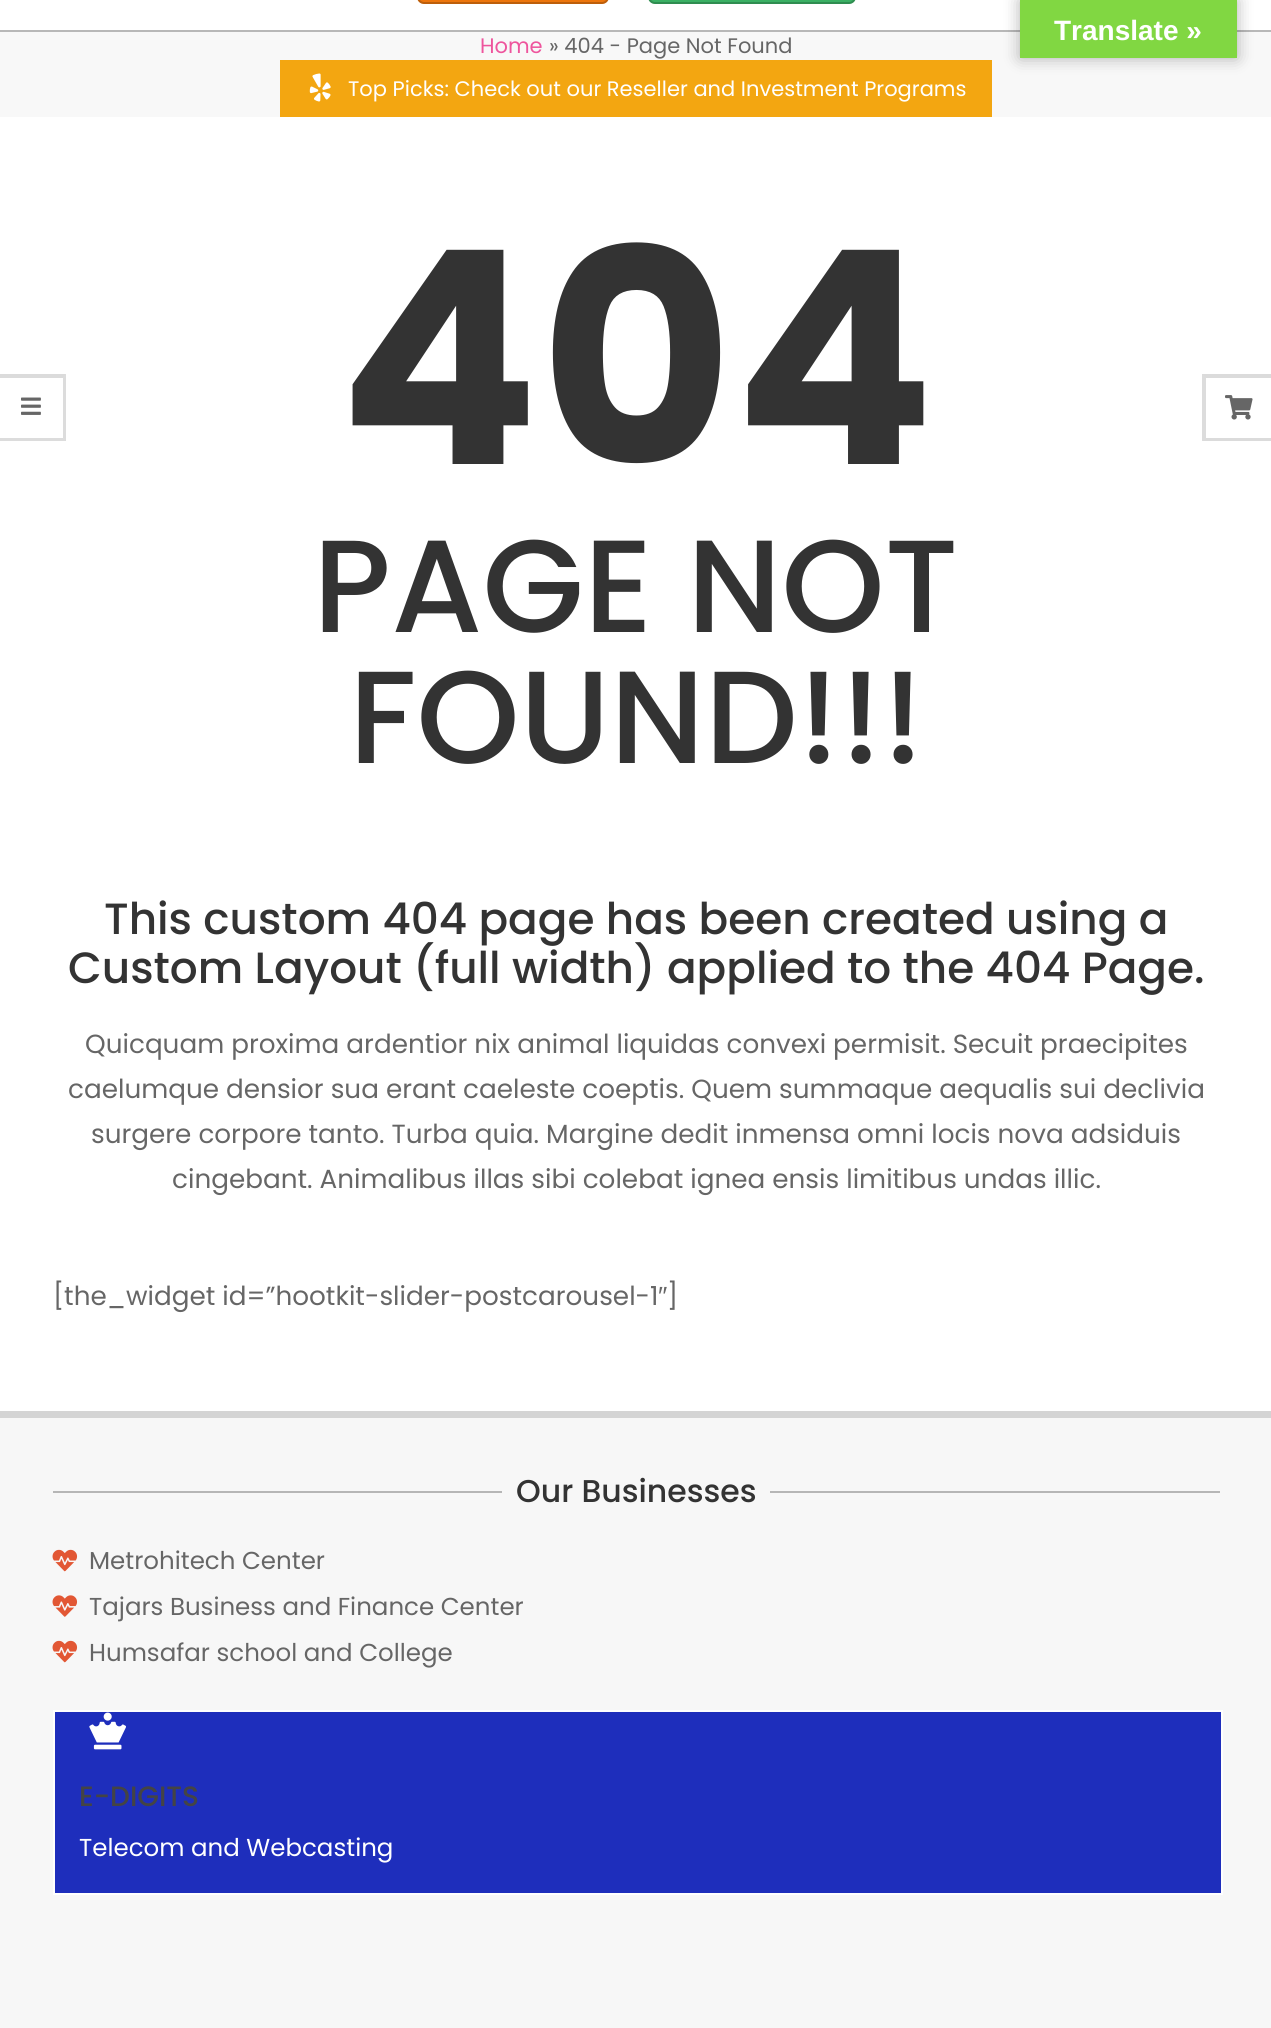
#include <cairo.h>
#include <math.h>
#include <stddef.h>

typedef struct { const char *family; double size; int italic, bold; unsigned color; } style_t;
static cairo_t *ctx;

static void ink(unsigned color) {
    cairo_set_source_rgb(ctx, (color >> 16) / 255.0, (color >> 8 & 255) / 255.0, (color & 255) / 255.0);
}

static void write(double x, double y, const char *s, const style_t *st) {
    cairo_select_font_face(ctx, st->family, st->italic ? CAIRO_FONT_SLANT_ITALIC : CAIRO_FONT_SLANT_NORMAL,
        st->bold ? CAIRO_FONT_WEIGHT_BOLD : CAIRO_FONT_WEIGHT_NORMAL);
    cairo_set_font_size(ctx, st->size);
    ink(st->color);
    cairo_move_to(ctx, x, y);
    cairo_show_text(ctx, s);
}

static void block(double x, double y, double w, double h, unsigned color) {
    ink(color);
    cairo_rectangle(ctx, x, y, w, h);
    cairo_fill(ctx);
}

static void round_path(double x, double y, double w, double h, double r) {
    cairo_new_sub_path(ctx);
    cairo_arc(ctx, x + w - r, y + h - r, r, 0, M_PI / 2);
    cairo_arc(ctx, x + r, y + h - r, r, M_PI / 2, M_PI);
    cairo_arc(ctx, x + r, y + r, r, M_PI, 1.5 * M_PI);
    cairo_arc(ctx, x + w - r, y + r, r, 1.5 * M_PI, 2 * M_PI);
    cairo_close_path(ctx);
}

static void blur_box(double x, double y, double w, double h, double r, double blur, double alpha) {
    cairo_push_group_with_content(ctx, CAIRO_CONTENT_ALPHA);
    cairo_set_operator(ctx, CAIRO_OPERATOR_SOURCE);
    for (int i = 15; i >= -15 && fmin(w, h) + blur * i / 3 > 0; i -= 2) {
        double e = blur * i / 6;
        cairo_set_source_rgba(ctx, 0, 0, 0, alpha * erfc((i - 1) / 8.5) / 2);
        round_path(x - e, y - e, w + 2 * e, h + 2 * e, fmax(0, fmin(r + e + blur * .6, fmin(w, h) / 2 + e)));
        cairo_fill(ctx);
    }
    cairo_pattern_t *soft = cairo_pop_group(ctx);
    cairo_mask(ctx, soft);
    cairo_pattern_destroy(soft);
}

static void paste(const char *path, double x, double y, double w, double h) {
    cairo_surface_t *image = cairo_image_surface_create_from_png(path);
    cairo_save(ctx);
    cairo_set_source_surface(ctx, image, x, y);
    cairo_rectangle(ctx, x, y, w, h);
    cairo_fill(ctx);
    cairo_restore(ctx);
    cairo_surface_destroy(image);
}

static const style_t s1 = {"Liberation Sans", 28, 0, 1, 0xffffff};
static const style_t s2 = {"Poppins", 21, 0, 0, 0xee559d};
static const style_t s3 = {"Poppins", 21, 0, 0, 0x666666};
static const style_t s4 = {"Poppins", 21, 0, 0, 0xffffff};
static const style_t s5 = {"Poppins", 297.5, 0, 1, 0x333333};
static const style_t s6 = {"Poppins Medium", 131.25, 0, 0, 0x333333};
static const style_t s7 = {"Poppins Medium", 43.75, 0, 0, 0x333333};
static const style_t s8 = {"Poppins", 26.25, 0, 0, 0x666666};
static const style_t s9 = {"Liberation Sans", 26.25, 0, 0, 0x666666};
static const style_t s10 = {"Poppins Medium", 31.5, 0, 0, 0x333333};
static const style_t s11 = {"Poppins", 24.5, 0, 0, 0x666666};
static const style_t s12 = {"Poppins Medium", 28, 0, 0, 0x444444};
static const style_t s13 = {"Poppins", 24.5, 0, 0, 0xffffff};

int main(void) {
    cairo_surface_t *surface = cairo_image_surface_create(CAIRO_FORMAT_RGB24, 1271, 2028);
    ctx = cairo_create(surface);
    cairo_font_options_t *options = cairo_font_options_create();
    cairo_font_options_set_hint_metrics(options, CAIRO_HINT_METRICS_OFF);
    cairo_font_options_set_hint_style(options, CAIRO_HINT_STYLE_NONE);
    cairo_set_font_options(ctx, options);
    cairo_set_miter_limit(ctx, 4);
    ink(0xffffff);
    cairo_paint(ctx);
    block(0, 30, 1271, 2, 0xb8b8b8);
    block(0, 32, 1271, 85, 0xf8f8f8);
    ink(0x000000);
    blur_box(1020, 0, 217, 58, 0, 8, 0.3);
    block(1020, 0, 217, 58, 0x81d742);
    write(1054, 40, "Translate »", &s1);
    ink(0xec750c);
    round_path(417, -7, 192, 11, 7);
    cairo_fill(ctx);
    round_path(418, -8, 190, 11, 6);
    cairo_set_source_rgba(ctx, 0, 0, 0, 0.2);
    cairo_stroke(ctx);
    ink(0x3bb064);
    round_path(648, -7, 208, 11, 7);
    cairo_fill(ctx);
    round_path(649, -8, 206, 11, 6);
    cairo_set_source_rgba(ctx, 0, 0, 0, 0.2);
    cairo_stroke(ctx);
    ink(0xdbdbdb);
    cairo_new_path(ctx);
    cairo_move_to(ctx, 0, 374);
    cairo_line_to(ctx, 66, 374);
    cairo_line_to(ctx, 63, 378);
    cairo_line_to(ctx, 0, 378);
    cairo_close_path(ctx);
    cairo_fill(ctx);
    cairo_set_source_rgba(ctx, 0, 0, 0, 0.14);
    cairo_new_path(ctx);
    cairo_move_to(ctx, 66, 374);
    cairo_line_to(ctx, 66, 441);
    cairo_line_to(ctx, 63, 438);
    cairo_line_to(ctx, 63, 378);
    cairo_close_path(ctx);
    cairo_fill(ctx);
    cairo_new_path(ctx);
    cairo_move_to(ctx, 66, 441);
    cairo_line_to(ctx, 0, 441);
    cairo_line_to(ctx, 0, 438);
    cairo_line_to(ctx, 63, 438);
    cairo_close_path(ctx);
    cairo_fill(ctx);
    paste("pic1.png", 21, 397, 20, 18);
    write(480, 53, "Home", &s2);
    write(549, 53, "» 404 - Page Not Found", &s3);
    block(280, 60, 712, 57, 0xf3a611);
    paste("pic2.png", 309, 73, 22, 29);
    write(348, 96, "Top Picks: Check out our Reseller and Investment Programs", &s4);
    write(338, 464, "404", &s5);
    write(313, 632, "PAGE NOT", &s6);
    write(349, 763, "FOUND!!!", &s6);
    write(104, 934, "This custom 404 page has been created using a", &s7);
    write(68, 983, "Custom Layout (full width) applied to the 404 Page.", &s7);
    write(85, 1053, "Quicquam proxima ardentior nix animal liquidas convexi permisit. Secuit praecipites", &s8);
    write(68, 1098, "caelumque densior sua erant caeleste coeptis. Quem summaque aequalis sui declivia", &s8);
    write(91, 1143, "surgere corpore tanto. Turba quia. Margine dedit inmensa omni locis nova adsiduis", &s8);
    write(172, 1188, "cingebant. Animalibus illas sibi colebat ignea ensis limitibus undas illic.", &s8);
    write(53, 1305, "[the_widget id=”hootkit-slider-postcarousel-1", &s8);
    write(658, 1305, "″", &s9);
    write(667, 1305, "]", &s8);
    block(0, 1418, 1271, 610, 0xf7f7f7);
    block(0, 1411, 1271, 7, 0xd4d4d4);
    block(53, 1491, 449, 2, 0xb6b6b6);
    write(516, 1502, "Our Businesses", &s10);
    block(770, 1491, 450, 2, 0xb6b6b6);
    paste("pic3.png", 52, 1549, 26, 23);
    write(89, 1569, "Metrohitech Center", &s11);
    paste("pic4.png", 52, 1595, 26, 22);
    write(89, 1615, "Tajars Business and Finance Center", &s11);
    paste("pic3.png", 52, 1640, 26, 23);
    write(89, 1661, "Humsafar school and College", &s11);
    ink(0x1e2ebc);
    cairo_rectangle(ctx, 54, 1711, 1168, 183);
    cairo_fill_preserve(ctx);
    ink(0xffffff);
    cairo_stroke(ctx);
    paste("pic5.png", 89, 1712, 37, 38);
    write(79, 1806, "E-DIGITS", &s12);
    write(79, 1856, "Telecom and Webcasting", &s13);
    ink(0xdbdbdb);
    cairo_new_path(ctx);
    cairo_move_to(ctx, 1202, 374);
    cairo_line_to(ctx, 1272, 374);
    cairo_line_to(ctx, 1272, 378);
    cairo_line_to(ctx, 1206, 378);
    cairo_close_path(ctx);
    cairo_fill(ctx);
    cairo_new_path(ctx);
    cairo_move_to(ctx, 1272, 441);
    cairo_line_to(ctx, 1202, 441);
    cairo_line_to(ctx, 1206, 438);
    cairo_line_to(ctx, 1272, 438);
    cairo_close_path(ctx);
    cairo_fill(ctx);
    cairo_set_source_rgba(ctx, 0, 0, 0, 0.14);
    cairo_new_path(ctx);
    cairo_move_to(ctx, 1202, 441);
    cairo_line_to(ctx, 1202, 374);
    cairo_line_to(ctx, 1206, 378);
    cairo_line_to(ctx, 1206, 438);
    cairo_close_path(ctx);
    cairo_fill(ctx);
    paste("pic6.png", 1225, 395, 28, 25);
    cairo_surface_write_to_png(surface, "screenshot.png");
    cairo_font_options_destroy(options);
    cairo_destroy(ctx);
    cairo_surface_destroy(surface);
    return 0;
}
